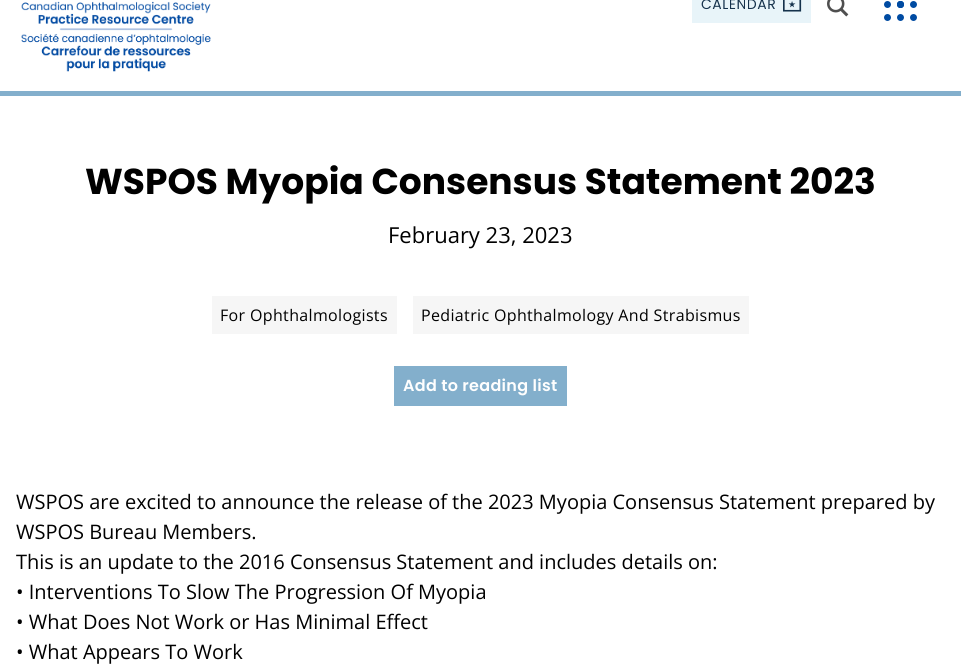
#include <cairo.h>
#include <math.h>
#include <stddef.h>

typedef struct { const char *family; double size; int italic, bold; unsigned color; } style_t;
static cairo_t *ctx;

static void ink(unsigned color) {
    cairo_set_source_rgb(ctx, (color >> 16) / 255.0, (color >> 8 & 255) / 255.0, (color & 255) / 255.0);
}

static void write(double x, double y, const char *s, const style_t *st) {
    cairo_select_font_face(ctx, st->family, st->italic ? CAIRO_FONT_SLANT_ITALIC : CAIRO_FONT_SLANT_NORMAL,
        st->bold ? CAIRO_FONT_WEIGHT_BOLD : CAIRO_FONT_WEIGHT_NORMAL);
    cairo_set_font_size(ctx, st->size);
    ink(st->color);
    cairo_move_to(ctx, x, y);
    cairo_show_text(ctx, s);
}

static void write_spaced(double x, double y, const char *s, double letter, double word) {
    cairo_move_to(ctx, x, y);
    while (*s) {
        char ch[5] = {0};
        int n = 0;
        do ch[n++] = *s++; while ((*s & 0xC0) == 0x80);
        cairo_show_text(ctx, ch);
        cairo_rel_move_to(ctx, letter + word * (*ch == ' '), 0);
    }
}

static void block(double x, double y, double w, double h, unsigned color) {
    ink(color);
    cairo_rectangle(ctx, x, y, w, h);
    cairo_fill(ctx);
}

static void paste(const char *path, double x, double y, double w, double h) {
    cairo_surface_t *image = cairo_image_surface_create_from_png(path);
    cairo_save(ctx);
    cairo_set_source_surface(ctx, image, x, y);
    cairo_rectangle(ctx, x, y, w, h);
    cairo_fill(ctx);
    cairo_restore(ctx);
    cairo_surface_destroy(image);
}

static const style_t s1 = {"Poppins", 36, 0, 1, 0x000000};
static const style_t s2 = {"Open Sans", 22, 0, 0, 0x000000};
static const style_t s3 = {"Open Sans", 20, 0, 0, 0x000000};

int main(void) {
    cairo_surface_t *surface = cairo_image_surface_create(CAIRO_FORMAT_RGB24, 961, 669);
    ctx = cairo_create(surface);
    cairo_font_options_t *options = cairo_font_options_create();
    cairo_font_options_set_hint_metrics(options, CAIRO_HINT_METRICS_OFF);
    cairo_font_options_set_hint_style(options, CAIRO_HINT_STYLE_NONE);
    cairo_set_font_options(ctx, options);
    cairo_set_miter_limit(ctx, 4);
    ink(0xffffff);
    cairo_paint(ctx);
    block(0, 91, 961, 5, 0x83afcc);
    paste("pic1.png", 21, 1, 190, 71);
    block(692, 0, 119, 23, 0xe8f4f9);
    cairo_select_font_face(ctx, "Poppins", CAIRO_FONT_SLANT_NORMAL, CAIRO_FONT_WEIGHT_NORMAL);
    cairo_set_font_size(ctx, 14);
    ink(0x15324c);
    write_spaced(701, 9, "CALENDAR", 0.5, 0);
    paste("pic2.png", 783, 0, 19, 12);
    paste("pic3.png", 827, 0, 22, 17);
    paste("pic4.png", 884, 1, 33, 20);
    write(85, 194, "WSPOS Myopia Consensus Statement 2023", &s1);
    write(388, 243, "February 23, 2023", &s2);
    block(212, 296, 185, 38, 0xf6f6f6);
    cairo_set_font_size(ctx, 16);
    ink(0x000000);
    write_spaced(220, 321, "For Ophthalmologists", 0.35, 0);
    block(413, 296, 336, 38, 0xf6f6f6);
    ink(0x000000);
    write_spaced(421, 321, "Pediatric Ophthalmology And Strabismus", 0.35, 0);
    block(394, 366, 173, 40, 0x83afcc);
    cairo_select_font_face(ctx, "Poppins SemiBold", CAIRO_FONT_SLANT_NORMAL, CAIRO_FONT_WEIGHT_NORMAL);
    ink(0xfefefe);
    write_spaced(403, 391, "Add to reading list", 0.3, 0);
    write(16, 509, "WSPOS are excited to announce the release of the 2023 Myopia Consensus Statement prepared by", &s3);
    write(16, 539, "WSPOS Bureau Members.", &s3);
    write(16, 569, "This is an update to the 2016 Consensus Statement and includes details on:", &s3);
    write(16, 599, "• Interventions To Slow The Progression Of Myopia", &s3);
    write(16, 629, "• What Does Not Work or Has Minimal Effect", &s3);
    write(16, 659, "• What Appears To Work", &s3);
    cairo_surface_write_to_png(surface, "screenshot.png");
    cairo_font_options_destroy(options);
    cairo_destroy(ctx);
    cairo_surface_destroy(surface);
    return 0;
}
